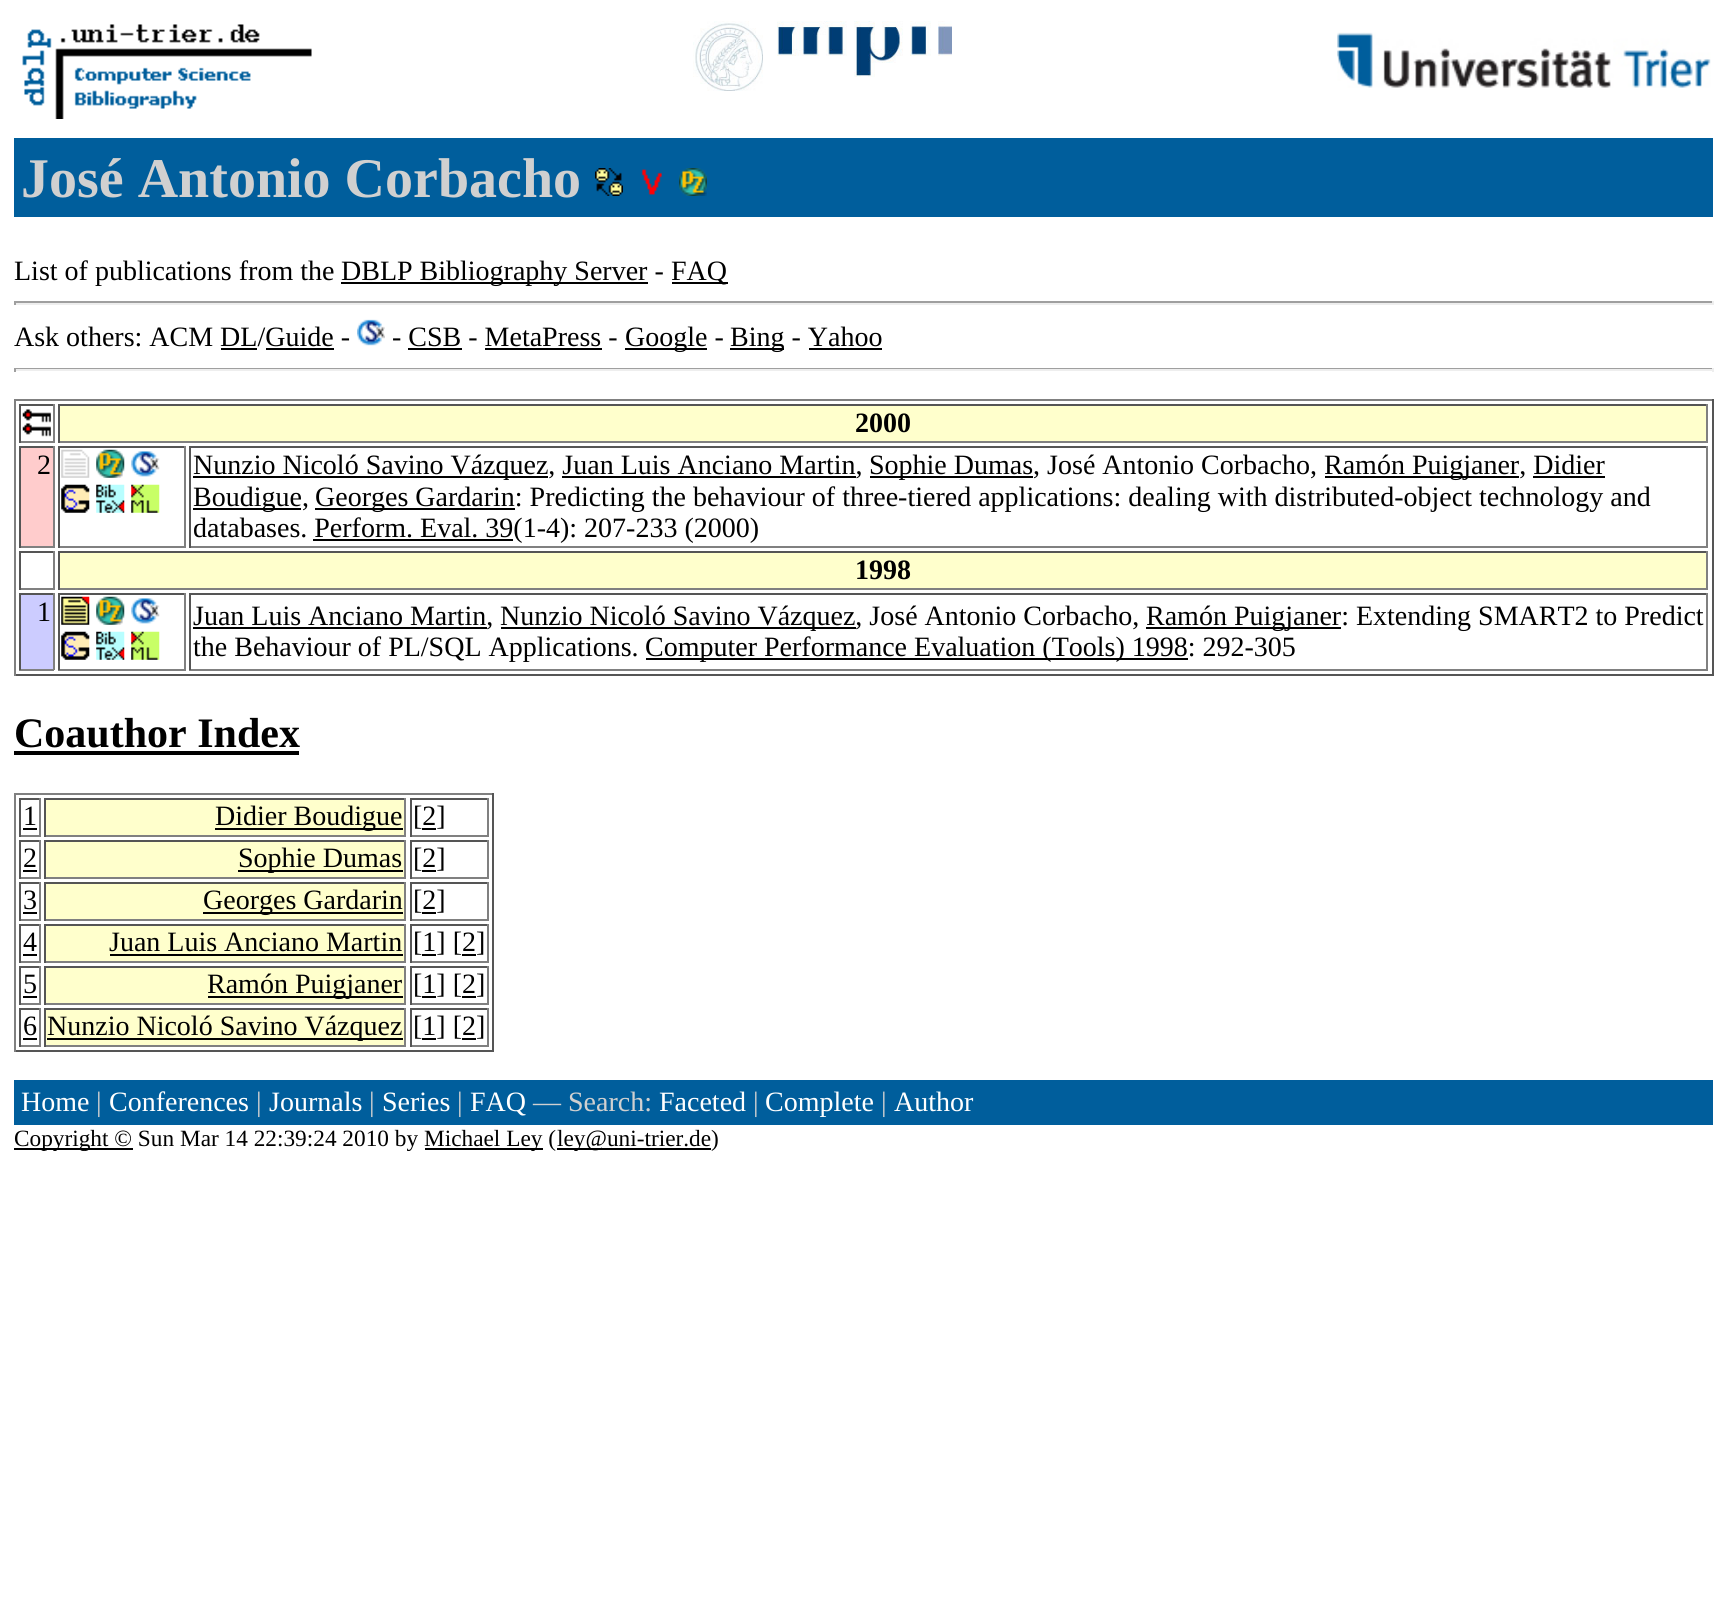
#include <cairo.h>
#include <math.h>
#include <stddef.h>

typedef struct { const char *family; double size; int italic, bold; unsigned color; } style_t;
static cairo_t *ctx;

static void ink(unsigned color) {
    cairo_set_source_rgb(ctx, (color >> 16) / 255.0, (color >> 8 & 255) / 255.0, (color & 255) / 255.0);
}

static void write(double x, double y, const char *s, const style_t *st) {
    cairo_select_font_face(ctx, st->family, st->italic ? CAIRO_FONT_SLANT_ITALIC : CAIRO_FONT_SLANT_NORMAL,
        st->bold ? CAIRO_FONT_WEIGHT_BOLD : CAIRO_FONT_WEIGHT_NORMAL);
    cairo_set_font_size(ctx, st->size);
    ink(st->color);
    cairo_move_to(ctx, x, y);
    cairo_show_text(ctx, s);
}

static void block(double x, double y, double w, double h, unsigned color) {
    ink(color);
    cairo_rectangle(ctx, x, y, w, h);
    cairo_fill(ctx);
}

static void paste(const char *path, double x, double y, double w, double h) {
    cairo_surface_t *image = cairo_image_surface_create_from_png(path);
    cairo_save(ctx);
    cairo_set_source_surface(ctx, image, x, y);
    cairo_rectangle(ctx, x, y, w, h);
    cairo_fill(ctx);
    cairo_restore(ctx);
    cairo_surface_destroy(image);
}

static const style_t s1 = {"Liberation Serif", 56, 0, 1, 0xd0d0d0};
static const style_t s2 = {"Liberation Serif", 28, 0, 0, 0x000000};
static const style_t s3 = {"Liberation Serif", 28, 0, 1, 0x000000};
static const style_t s4 = {"Liberation Serif", 42, 0, 1, 0x000000};
static const style_t s5 = {"Liberation Serif", 28, 0, 0, 0xffffff};
static const style_t s6 = {"Liberation Serif", 28, 0, 0, 0xd0d0d0};
static const style_t s7 = {"Liberation Serif", 23.3, 0, 0, 0x000000};

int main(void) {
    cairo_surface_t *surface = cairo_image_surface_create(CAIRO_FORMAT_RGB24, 1727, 1619);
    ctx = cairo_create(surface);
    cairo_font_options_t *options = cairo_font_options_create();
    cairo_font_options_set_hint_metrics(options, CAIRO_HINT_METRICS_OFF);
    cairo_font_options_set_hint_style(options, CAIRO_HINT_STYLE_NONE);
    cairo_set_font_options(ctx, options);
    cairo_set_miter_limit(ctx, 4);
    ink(0xffffff);
    cairo_paint(ctx);
    paste("pic1.png", 22, 24, 290, 95);
    paste("pic2.png", 693, 21, 259, 70);
    paste("pic3.png", 1337, 32, 374, 56);
    block(14, 138, 1699, 79, 0x005e9c);
    write(21, 197, "José Antonio Corbacho", &s1);
    paste("pic4.png", 595, 168, 28, 28);
    paste("pic5.png", 641, 169, 21, 26);
    paste("pic6.png", 679, 168, 28, 28);
    write(14, 280, "List of publications from the", &s2);
    block(341, 282, 307, 2, 0x000000);
    write(341, 280, "DBLP Bibliography Server -", &s2);
    block(672, 282, 56, 2, 0x000000);
    write(671, 280, "FAQ", &s2);
    block(14, 301, 1699, 2, 0x9f9f9f);
    block(1712, 301, 2, 4, 0xeeeeee);
    block(14, 303, 1699, 2, 0xeeeeee);
    block(14, 301, 2, 4, 0x9f9f9f);
    write(14, 346, "Ask others: ACM DL/Guide -", &s2);
    paste("pic7.png", 357, 319, 28, 27);
    write(392, 346, "- CSB - MetaPress -", &s2);
    block(625, 348, 82, 2, 0x000000);
    write(625, 346, "Google -", &s2);
    block(730, 348, 54, 2, 0x000000);
    write(730, 346, "Bing - Yahoo", &s2);
    block(221, 348, 36, 2, 0x000000);
    block(266, 348, 68, 2, 0x000000);
    block(408, 348, 54, 2, 0x000000);
    block(485, 348, 117, 2, 0x000000);
    block(809, 348, 73, 2, 0x000000);
    block(14, 368, 1699, 1, 0x9f9f9f);
    block(1712, 368, 2, 4, 0xeeeeee);
    block(14, 369, 1699, 2, 0xeeeeee);
    block(14, 368, 2, 4, 0x9f9f9f);
    block(14, 399, 1699, 2, 0x808080);
    block(1712, 399, 2, 277, 0x555555);
    block(14, 674, 1699, 2, 0x555555);
    block(14, 399, 2, 277, 0x808080);
    block(19, 404, 35, 2, 0x555555);
    block(53, 404, 2, 39, 0x808080);
    block(19, 441, 35, 2, 0x808080);
    block(19, 404, 2, 39, 0x555555);
    paste("pic8.png", 22, 409, 29, 28);
    block(60, 406, 1646, 35, 0xffffcc);
    block(58, 404, 1650, 2, 0x555555);
    block(1706, 404, 2, 39, 0x808080);
    block(58, 441, 1650, 2, 0x808080);
    block(58, 404, 2, 39, 0x555555);
    write(855, 432, "2000", &s3);
    block(21, 448, 32, 98, 0xffcccc);
    block(19, 446, 35, 2, 0x555555);
    block(53, 446, 2, 102, 0x808080);
    block(19, 546, 35, 2, 0x808080);
    block(19, 446, 2, 102, 0x555555);
    write(37, 474, "2", &s2);
    block(58, 446, 128, 2, 0x555555);
    block(184, 446, 2, 102, 0x808080);
    block(58, 546, 128, 2, 0x808080);
    block(58, 446, 2, 102, 0x555555);
    paste("pic9.png", 61, 449, 29, 29);
    paste("pic10.png", 96, 449, 29, 29);
    paste("pic11.png", 131, 451, 29, 26);
    paste("pic12.png", 61, 484, 29, 29);
    paste("pic13.png", 96, 484, 29, 29);
    paste("pic14.png", 131, 484, 29, 29);
    block(189, 446, 1519, 2, 0x555555);
    block(1706, 446, 2, 102, 0x808080);
    block(189, 546, 1519, 2, 0x808080);
    block(189, 446, 2, 102, 0x555555);
    block(193, 476, 355, 2, 0x000000);
    write(193, 474, "Nunzio Nicoló Savino Vázquez, Juan Luis Anciano Martin,", &s2);
    block(870, 476, 163, 2, 0x000000);
    write(869, 474, "Sophie Dumas, José Antonio Corbacho,", &s2);
    block(1325, 476, 194, 2, 0x000000);
    write(1324, 474, "Ramón Puigjaner, Didier", &s2);
    block(562, 476, 294, 2, 0x000000);
    block(193, 508, 108, 2, 0x000000);
    write(193, 506, "Boudigue,", &s2);
    block(1533, 476, 72, 2, 0x000000);
    block(315, 508, 200, 2, 0x000000);
    write(315, 506, "Georges Gardarin: Predicting the behaviour of three-tiered applications: dealing with distributed-object technology and", &s2);
    write(193, 537, "databases. Perform. Eval. 39(1-4): 207-233 (2000)", &s2);
    block(313, 539, 200, 2, 0x000000);
    block(19, 551, 35, 2, 0x555555);
    block(53, 551, 2, 39, 0x808080);
    block(19, 588, 35, 2, 0x808080);
    block(19, 551, 2, 39, 0x555555);
    block(60, 553, 1646, 35, 0xffffcc);
    block(58, 551, 1650, 2, 0x555555);
    block(1706, 551, 2, 39, 0x808080);
    block(58, 588, 1650, 2, 0x808080);
    block(58, 551, 2, 39, 0x555555);
    write(855, 579, "1998", &s3);
    block(21, 595, 32, 74, 0xccccff);
    block(19, 593, 35, 2, 0x555555);
    block(53, 593, 2, 77, 0x808080);
    block(19, 669, 35, 2, 0x808080);
    block(19, 593, 2, 77, 0x555555);
    write(37, 621, "1", &s2);
    block(58, 593, 128, 2, 0x555555);
    block(184, 593, 2, 77, 0x808080);
    block(58, 669, 128, 2, 0x808080);
    block(58, 593, 2, 77, 0x555555);
    paste("pic15.png", 61, 596, 29, 29);
    paste("pic10.png", 96, 596, 29, 29);
    paste("pic11.png", 131, 598, 29, 26);
    paste("pic12.png", 61, 631, 29, 29);
    paste("pic13.png", 96, 631, 29, 29);
    paste("pic14.png", 131, 631, 29, 29);
    block(189, 593, 1519, 2, 0x555555);
    block(1706, 593, 2, 77, 0x808080);
    block(189, 669, 1519, 2, 0x808080);
    block(189, 593, 2, 77, 0x555555);
    block(193, 627, 294, 2, 0x000000);
    write(193, 625, "Juan Luis Anciano Martin,", &s2);
    block(501, 627, 355, 2, 0x000000);
    write(500, 625, "Nunzio Nicoló Savino Vázquez, José Antonio Corbacho,", &s2);
    block(1146, 627, 195, 2, 0x000000);
    write(1146, 625, "Ramón Puigjaner: Extending SMART2 to Predict", &s2);
    write(193, 656, "the Behaviour of PL/SQL Applications.", &s2);
    block(646, 658, 542, 2, 0x000000);
    write(645, 656, "Computer Performance Evaluation (Tools) 1998: 292-305", &s2);
    write(14, 747, "Coauthor Index", &s4);
    block(14, 751, 285, 4, 0x000000);
    block(14, 793, 480, 2, 0x808080);
    block(492, 793, 2, 259, 0x555555);
    block(14, 1050, 480, 2, 0x555555);
    block(14, 793, 2, 259, 0x808080);
    block(19, 798, 21, 2, 0x555555);
    block(39, 798, 2, 39, 0x808080);
    block(19, 835, 21, 2, 0x808080);
    block(19, 798, 2, 39, 0x555555);
    write(23, 825, "1", &s2);
    block(23, 828, 14, 2, 0x000000);
    block(46, 800, 358, 35, 0xffffcc);
    block(44, 798, 362, 2, 0x555555);
    block(404, 798, 2, 39, 0x808080);
    block(44, 835, 362, 2, 0x808080);
    block(44, 798, 2, 39, 0x555555);
    block(215, 828, 188, 2, 0x000000);
    write(215, 825, "Didier Boudigue", &s2);
    block(410, 798, 78, 2, 0x555555);
    block(487, 798, 2, 39, 0x808080);
    block(410, 835, 78, 2, 0x808080);
    block(410, 798, 2, 39, 0x555555);
    write(413, 825, "[2]", &s2);
    block(422, 828, 14, 2, 0x000000);
    block(19, 840, 21, 2, 0x555555);
    block(39, 840, 2, 39, 0x808080);
    block(19, 877, 21, 2, 0x808080);
    block(19, 840, 2, 39, 0x555555);
    write(23, 867, "2", &s2);
    block(23, 870, 14, 2, 0x000000);
    block(46, 842, 358, 35, 0xffffcc);
    block(44, 840, 362, 2, 0x555555);
    block(404, 840, 2, 39, 0x808080);
    block(44, 877, 362, 2, 0x808080);
    block(44, 840, 2, 39, 0x555555);
    block(238, 870, 165, 2, 0x000000);
    write(238, 867, "Sophie Dumas", &s2);
    block(410, 840, 78, 2, 0x555555);
    block(487, 840, 2, 39, 0x808080);
    block(410, 877, 78, 2, 0x808080);
    block(410, 840, 2, 39, 0x555555);
    write(413, 867, "[2]", &s2);
    block(422, 870, 14, 2, 0x000000);
    block(19, 882, 21, 2, 0x555555);
    block(39, 882, 2, 39, 0x808080);
    block(19, 919, 21, 2, 0x808080);
    block(19, 882, 2, 39, 0x555555);
    write(23, 909, "3", &s2);
    block(23, 912, 14, 2, 0x000000);
    block(46, 884, 358, 35, 0xffffcc);
    block(44, 882, 362, 2, 0x555555);
    block(404, 882, 2, 39, 0x808080);
    block(44, 919, 362, 2, 0x808080);
    block(44, 882, 2, 39, 0x555555);
    block(203, 912, 200, 2, 0x000000);
    write(203, 909, "Georges Gardarin", &s2);
    block(410, 882, 78, 2, 0x555555);
    block(487, 882, 2, 39, 0x808080);
    block(410, 919, 78, 2, 0x808080);
    block(410, 882, 2, 39, 0x555555);
    write(413, 909, "[2]", &s2);
    block(422, 912, 14, 2, 0x000000);
    block(19, 924, 21, 2, 0x555555);
    block(39, 924, 2, 39, 0x808080);
    block(19, 961, 21, 2, 0x808080);
    block(19, 924, 2, 39, 0x555555);
    write(23, 951, "4", &s2);
    block(23, 954, 14, 2, 0x000000);
    block(46, 926, 358, 35, 0xffffcc);
    block(44, 924, 362, 2, 0x555555);
    block(404, 924, 2, 39, 0x808080);
    block(44, 961, 362, 2, 0x808080);
    block(44, 924, 2, 39, 0x555555);
    write(109, 951, "Juan Luis Anciano Martin", &s2);
    block(110, 954, 293, 2, 0x000000);
    block(410, 924, 78, 2, 0x555555);
    block(487, 924, 2, 39, 0x808080);
    block(410, 961, 78, 2, 0x808080);
    block(410, 924, 2, 39, 0x555555);
    write(413, 951, "[1] [2]", &s2);
    block(422, 954, 14, 2, 0x000000);
    block(462, 954, 14, 2, 0x000000);
    block(19, 966, 21, 2, 0x555555);
    block(39, 966, 2, 39, 0x808080);
    block(19, 1003, 21, 2, 0x808080);
    block(19, 966, 2, 39, 0x555555);
    write(23, 993, "5", &s2);
    block(23, 996, 14, 2, 0x000000);
    block(46, 968, 358, 35, 0xffffcc);
    block(44, 966, 362, 2, 0x555555);
    block(404, 966, 2, 39, 0x808080);
    block(44, 1003, 362, 2, 0x808080);
    block(44, 966, 2, 39, 0x555555);
    block(208, 996, 195, 2, 0x000000);
    write(207, 993, "Ramón Puigjaner", &s2);
    block(410, 966, 78, 2, 0x555555);
    block(487, 966, 2, 39, 0x808080);
    block(410, 1003, 78, 2, 0x808080);
    block(410, 966, 2, 39, 0x555555);
    write(413, 993, "[1] [2]", &s2);
    block(422, 996, 14, 2, 0x000000);
    block(462, 996, 14, 2, 0x000000);
    block(19, 1008, 21, 2, 0x555555);
    block(39, 1008, 2, 39, 0x808080);
    block(19, 1045, 21, 2, 0x808080);
    block(19, 1008, 2, 39, 0x555555);
    write(23, 1035, "6", &s2);
    block(23, 1038, 14, 2, 0x000000);
    block(46, 1010, 358, 35, 0xffffcc);
    block(44, 1008, 362, 2, 0x555555);
    block(404, 1008, 2, 39, 0x808080);
    block(44, 1045, 362, 2, 0x808080);
    block(44, 1008, 2, 39, 0x555555);
    block(47, 1038, 356, 2, 0x000000);
    write(47, 1035, "Nunzio Nicoló Savino Vázquez", &s2);
    block(410, 1008, 78, 2, 0x555555);
    block(487, 1008, 2, 39, 0x808080);
    block(410, 1045, 78, 2, 0x808080);
    block(410, 1008, 2, 39, 0x555555);
    write(413, 1035, "[1] [2]", &s2);
    block(422, 1038, 14, 2, 0x000000);
    block(462, 1038, 14, 2, 0x000000);
    block(14, 1080, 1699, 45, 0x005e9c);
    write(21, 1111, "Home", &s5);
    write(96, 1111, "|", &s6);
    write(109, 1111, "Conferences", &s5);
    write(256, 1111, "|", &s6);
    write(269, 1111, "Journals", &s5);
    write(369, 1111, "|", &s6);
    write(382, 1111, "Series", &s5);
    write(457, 1111, "|", &s6);
    write(470, 1111, "FAQ", &s5);
    write(533, 1111, "— Search:", &s6);
    write(659, 1111, "Faceted", &s5);
    write(753, 1111, "|", &s6);
    write(765, 1111, "Complete", &s5);
    write(881, 1111, "|", &s6);
    write(894, 1111, "Author", &s5);
    block(14, 1148, 119, 2, 0x000000);
    write(14, 1146, "Copyright © Sun Mar 14 22:39:24 2010 by", &s7);
    block(425, 1148, 118, 2, 0x000000);
    write(424, 1146, "Michael Ley (", &s7);
    block(557, 1148, 154, 2, 0x000000);
    write(557, 1146, "ley@uni-trier.de)", &s7);
    cairo_surface_write_to_png(surface, "screenshot.png");
    cairo_font_options_destroy(options);
    cairo_destroy(ctx);
    cairo_surface_destroy(surface);
    return 0;
}
